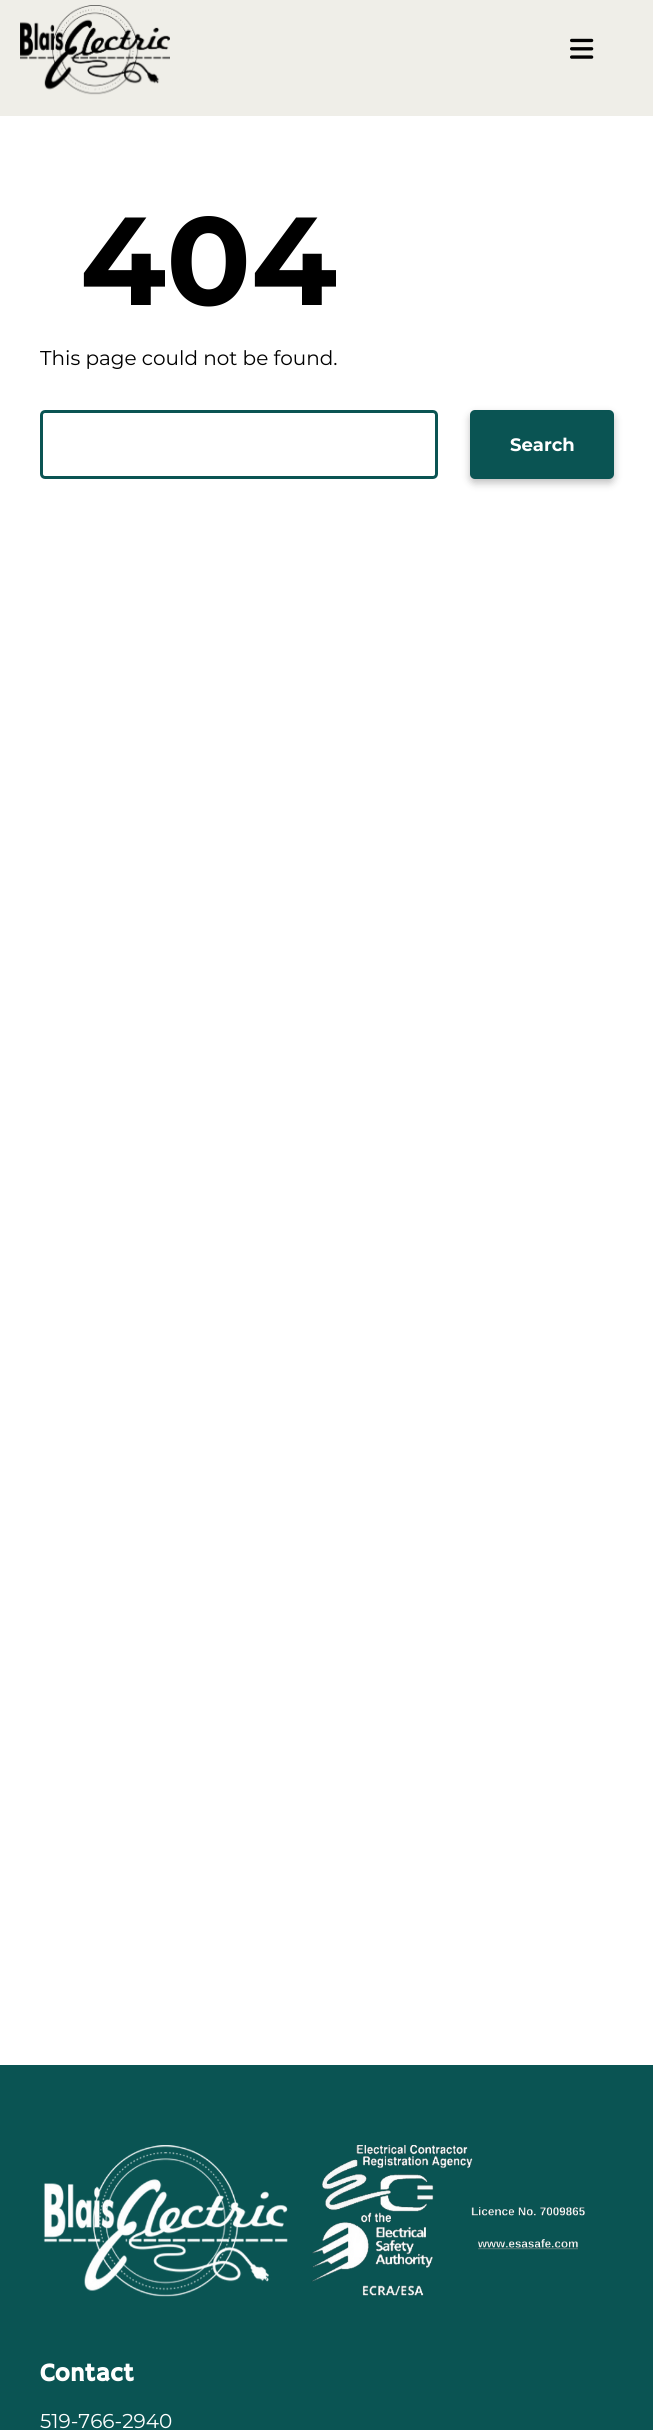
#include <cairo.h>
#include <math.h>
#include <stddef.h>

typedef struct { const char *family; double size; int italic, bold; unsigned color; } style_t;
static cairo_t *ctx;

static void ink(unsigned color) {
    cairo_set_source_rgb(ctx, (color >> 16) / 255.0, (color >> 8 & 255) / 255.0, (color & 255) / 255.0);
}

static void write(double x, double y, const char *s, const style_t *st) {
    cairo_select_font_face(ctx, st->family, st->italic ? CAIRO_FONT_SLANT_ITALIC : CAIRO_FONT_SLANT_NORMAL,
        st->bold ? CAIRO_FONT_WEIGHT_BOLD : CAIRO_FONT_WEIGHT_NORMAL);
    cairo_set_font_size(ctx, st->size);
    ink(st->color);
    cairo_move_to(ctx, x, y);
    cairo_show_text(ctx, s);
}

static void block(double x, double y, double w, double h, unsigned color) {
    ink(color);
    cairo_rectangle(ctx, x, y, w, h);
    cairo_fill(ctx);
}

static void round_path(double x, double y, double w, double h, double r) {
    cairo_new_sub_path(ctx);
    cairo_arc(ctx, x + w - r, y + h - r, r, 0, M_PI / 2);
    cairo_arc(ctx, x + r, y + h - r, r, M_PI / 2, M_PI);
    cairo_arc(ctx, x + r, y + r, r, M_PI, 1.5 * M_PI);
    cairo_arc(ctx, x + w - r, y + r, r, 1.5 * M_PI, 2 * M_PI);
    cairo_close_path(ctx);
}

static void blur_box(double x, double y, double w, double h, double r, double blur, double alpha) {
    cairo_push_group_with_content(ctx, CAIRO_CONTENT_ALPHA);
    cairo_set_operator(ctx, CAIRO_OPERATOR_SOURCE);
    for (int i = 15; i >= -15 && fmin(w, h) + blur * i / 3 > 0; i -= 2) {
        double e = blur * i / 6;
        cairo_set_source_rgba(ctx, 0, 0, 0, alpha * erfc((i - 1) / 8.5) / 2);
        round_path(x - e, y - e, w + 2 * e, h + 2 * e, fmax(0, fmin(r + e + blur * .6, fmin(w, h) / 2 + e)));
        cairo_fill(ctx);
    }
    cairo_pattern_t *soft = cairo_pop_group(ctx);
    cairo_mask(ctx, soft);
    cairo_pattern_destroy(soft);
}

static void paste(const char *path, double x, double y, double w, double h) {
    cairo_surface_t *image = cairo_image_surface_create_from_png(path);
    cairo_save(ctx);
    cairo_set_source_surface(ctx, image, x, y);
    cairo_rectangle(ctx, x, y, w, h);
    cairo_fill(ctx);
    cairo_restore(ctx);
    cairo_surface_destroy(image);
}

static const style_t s1 = {"Montserrat", 125, 0, 1, 0x000000};
static const style_t s2 = {"Montserrat", 20, 0, 0, 0x000000};
static const style_t s3 = {"Montserrat", 18, 0, 1, 0xffffff};
static const style_t s4 = {"Hammersmith One", 25.5, 0, 1, 0xffffff};
static const style_t s5 = {"Montserrat", 20, 0, 0, 0xffffff};

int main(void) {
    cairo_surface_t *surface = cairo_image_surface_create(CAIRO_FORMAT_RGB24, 653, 2430);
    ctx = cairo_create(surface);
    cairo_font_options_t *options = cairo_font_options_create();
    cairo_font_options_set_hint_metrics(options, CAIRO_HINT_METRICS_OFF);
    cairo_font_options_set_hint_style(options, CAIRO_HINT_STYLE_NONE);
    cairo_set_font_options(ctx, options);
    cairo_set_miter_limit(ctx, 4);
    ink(0xffffff);
    cairo_paint(ctx);
    block(0, 0, 653, 116, 0xefeee8);
    paste("pic1.png", 20, 5, 150, 90);
    paste("pic2.png", 570, 38, 24, 21);
    write(80, 305, "404", &s1);
    write(40, 365, "This page could not be found.", &s2);
    round_path(41.5, 411.5, 395, 66, 3.5);
    ink(0x0a5453);
    cairo_set_line_width(ctx, 3);
    cairo_stroke(ctx);
    ink(0x000000);
    blur_box(470, 414, 144, 69, 5, 4, 0.25);
    ink(0x0a5453);
    round_path(470, 410, 144, 69, 5);
    cairo_fill(ctx);
    write(510, 451, "Search", &s3);
    block(0, 2065, 653, 365, 0x0a5453);
    paste("pic3.png", 43, 2145, 542, 152);
    write(40, 2381, "Contact", &s4);
    write(40, 2428, "519-766-2940", &s5);
    cairo_surface_write_to_png(surface, "screenshot.png");
    cairo_font_options_destroy(options);
    cairo_destroy(ctx);
    cairo_surface_destroy(surface);
    return 0;
}
